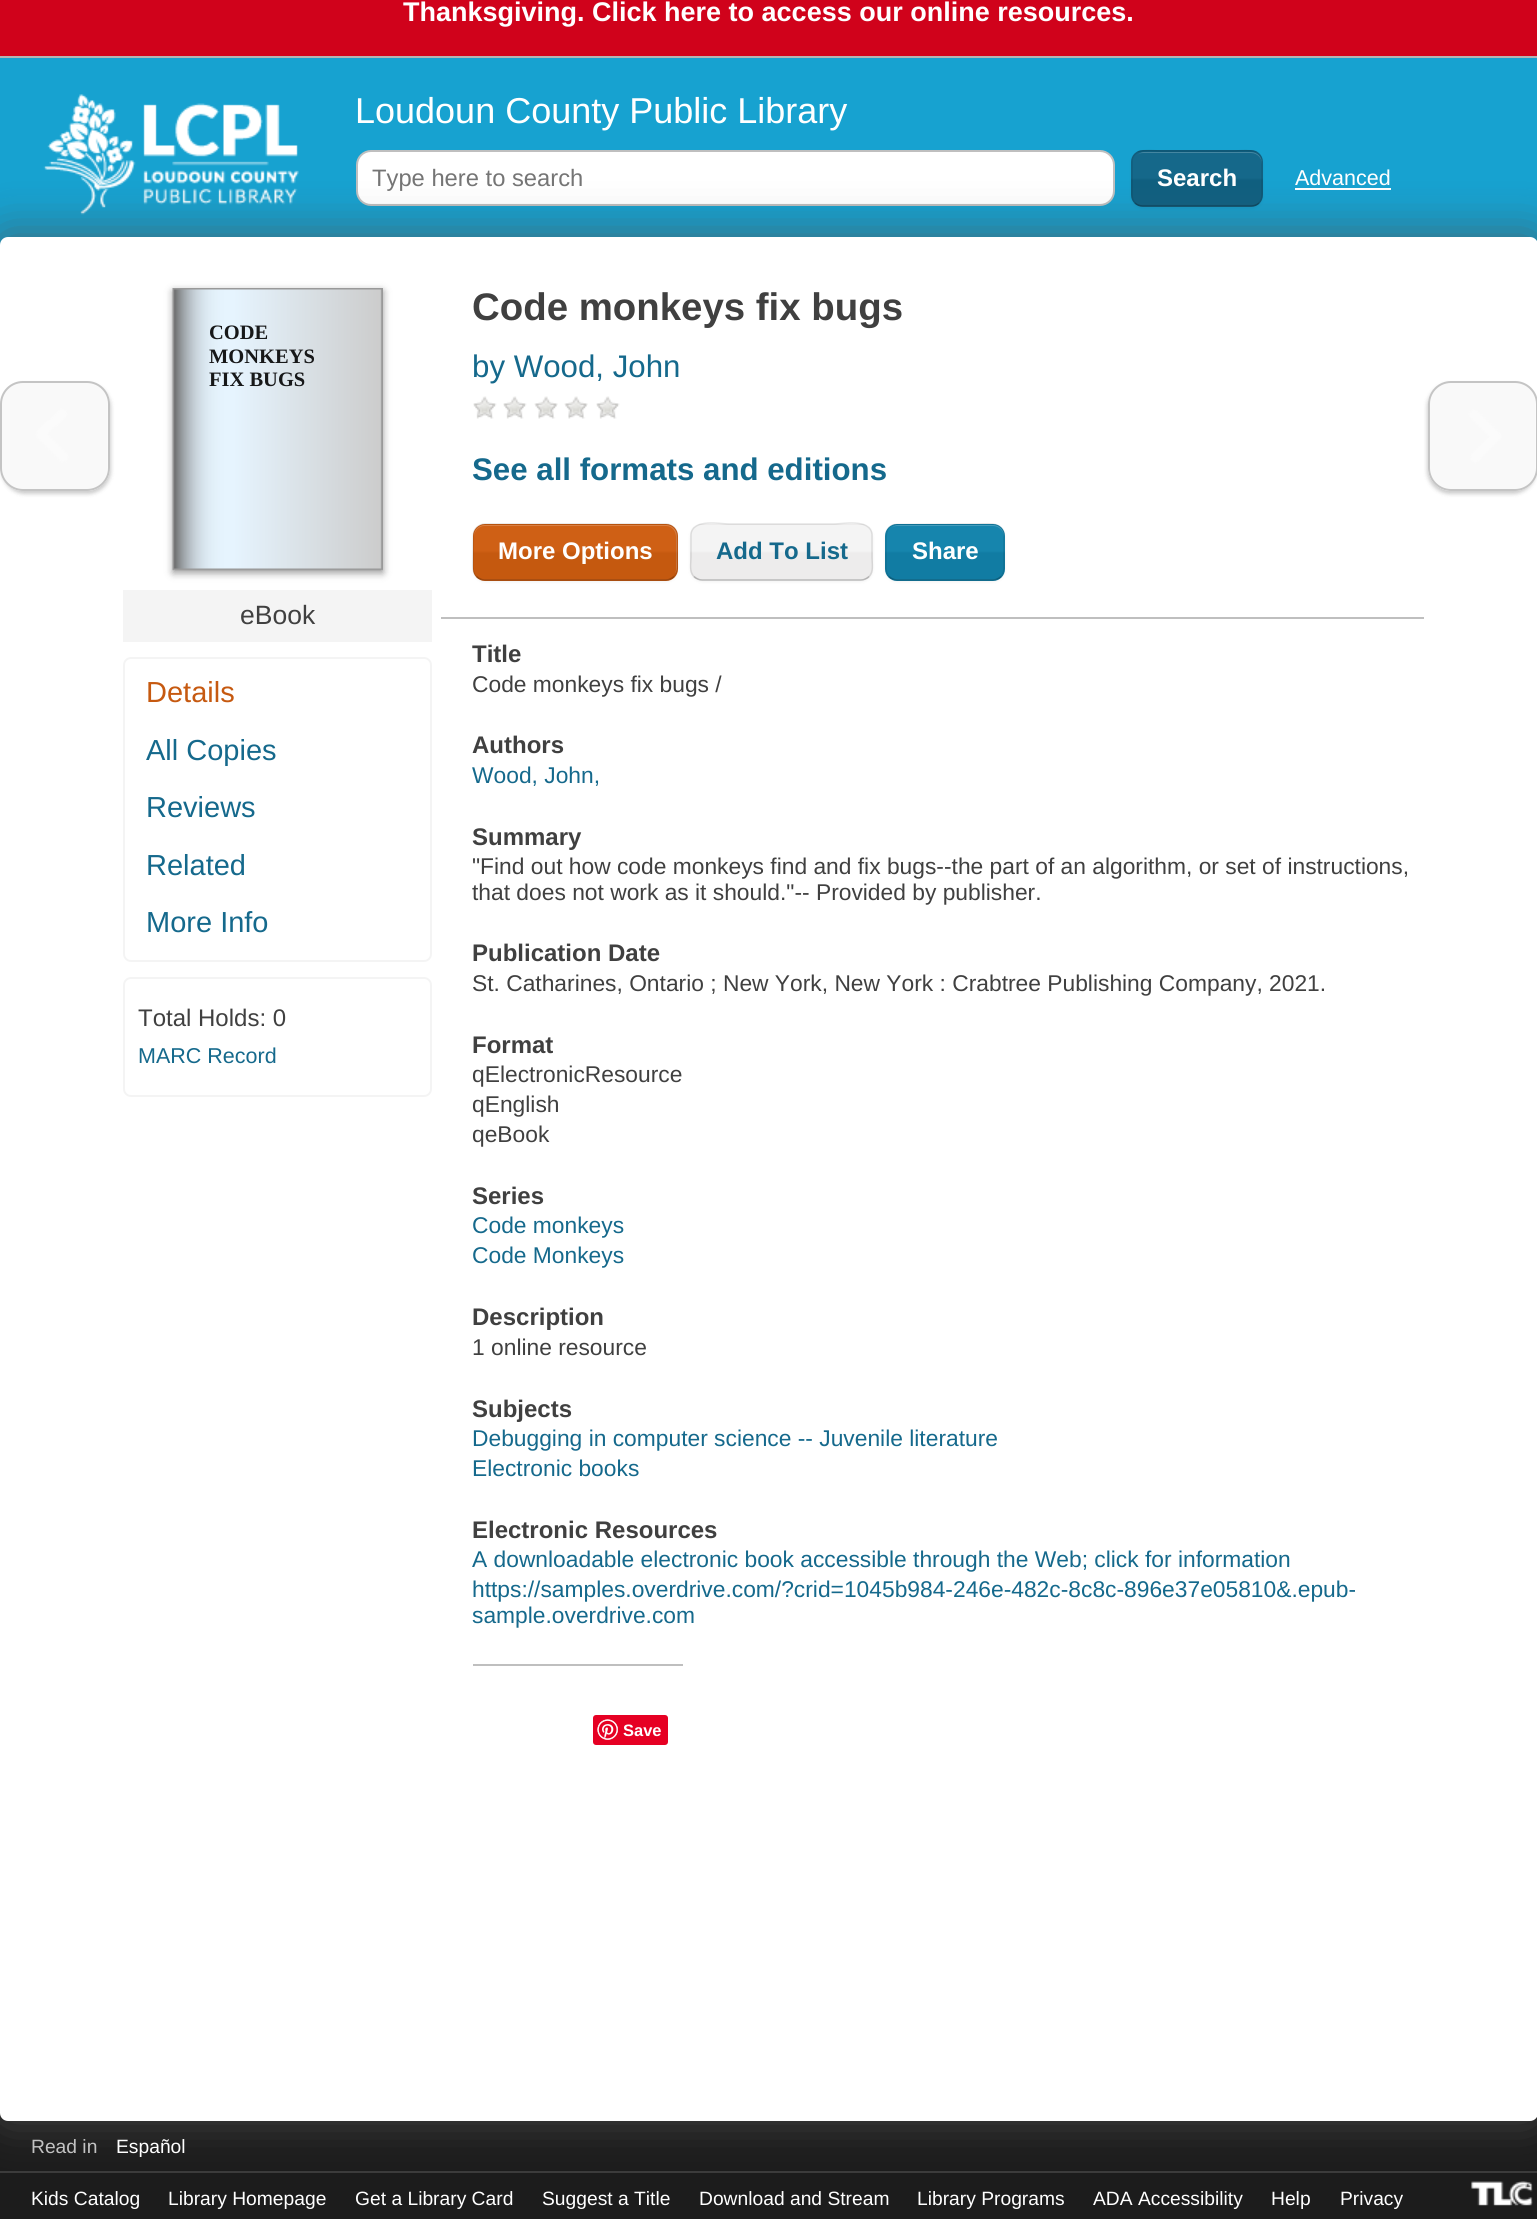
#include <cairo.h>
#include <math.h>
#include <stddef.h>

typedef struct { const char *family; double size; int italic, bold; unsigned color; } style_t;
static cairo_t *ctx;

static void ink(unsigned color) {
    cairo_set_source_rgb(ctx, (color >> 16) / 255.0, (color >> 8 & 255) / 255.0, (color & 255) / 255.0);
}

static void write(double x, double y, const char *s, const style_t *st) {
    cairo_select_font_face(ctx, st->family, st->italic ? CAIRO_FONT_SLANT_ITALIC : CAIRO_FONT_SLANT_NORMAL,
        st->bold ? CAIRO_FONT_WEIGHT_BOLD : CAIRO_FONT_WEIGHT_NORMAL);
    cairo_set_font_size(ctx, st->size);
    ink(st->color);
    cairo_move_to(ctx, x, y);
    cairo_show_text(ctx, s);
}

static void block(double x, double y, double w, double h, unsigned color) {
    ink(color);
    cairo_rectangle(ctx, x, y, w, h);
    cairo_fill(ctx);
}

static void round_path(double x, double y, double w, double h, double r) {
    cairo_new_sub_path(ctx);
    cairo_arc(ctx, x + w - r, y + h - r, r, 0, M_PI / 2);
    cairo_arc(ctx, x + r, y + h - r, r, M_PI / 2, M_PI);
    cairo_arc(ctx, x + r, y + r, r, M_PI, 1.5 * M_PI);
    cairo_arc(ctx, x + w - r, y + r, r, 1.5 * M_PI, 2 * M_PI);
    cairo_close_path(ctx);
}

static void blur_box(double x, double y, double w, double h, double r, double blur, double alpha) {
    cairo_push_group_with_content(ctx, CAIRO_CONTENT_ALPHA);
    cairo_set_operator(ctx, CAIRO_OPERATOR_SOURCE);
    for (int i = 15; i >= -15 && fmin(w, h) + blur * i / 3 > 0; i -= 2) {
        double e = blur * i / 6;
        cairo_set_source_rgba(ctx, 0, 0, 0, alpha * erfc((i - 1) / 8.5) / 2);
        round_path(x - e, y - e, w + 2 * e, h + 2 * e, fmax(0, fmin(r + e + blur * .6, fmin(w, h) / 2 + e)));
        cairo_fill(ctx);
    }
    cairo_pattern_t *soft = cairo_pop_group(ctx);
    cairo_mask(ctx, soft);
    cairo_pattern_destroy(soft);
}

static void paste(const char *path, double x, double y, double w, double h) {
    cairo_surface_t *image = cairo_image_surface_create_from_png(path);
    cairo_save(ctx);
    cairo_set_source_surface(ctx, image, x, y);
    cairo_rectangle(ctx, x, y, w, h);
    cairo_fill(ctx);
    cairo_restore(ctx);
    cairo_surface_destroy(image);
}

static const style_t s1 = {"Liberation Sans", 27, 0, 1, 0xffffff};
static const style_t s2 = {"Liberation Sans", 36, 0, 0, 0xffffff};
static const style_t s3 = {"Liberation Sans", 23.75, 0, 0, 0x757575};
static const style_t s4 = {"Liberation Sans", 24, 0, 1, 0xffffff};
static const style_t s5 = {"Liberation Sans", 21.5, 0, 0, 0xffffff};
static const style_t s6 = {"Liberation Serif", 20.5, 0, 1, 0x171819};
static const style_t s7 = {"Liberation Sans", 26.5, 0, 0, 0x404040};
static const style_t s8 = {"Liberation Sans", 29, 0, 0, 0xc65910};
static const style_t s9 = {"Liberation Sans", 29, 0, 0, 0x15698c};
static const style_t s10 = {"Liberation Sans", 24, 0, 0, 0x404040};
static const style_t s11 = {"Liberation Sans", 21.5, 0, 0, 0x15698c};
static const style_t s12 = {"Liberation Sans", 38.4, 0, 1, 0x404040};
static const style_t s13 = {"Liberation Sans", 31.25, 0, 0, 0x15698c};
static const style_t s14 = {"Liberation Sans", 31.25, 0, 1, 0x15698c};
static const style_t s15 = {"Liberation Sans", 24, 0, 1, 0x15698c};
static const style_t s16 = {"Liberation Sans", 24, 0, 1, 0x404040};
static const style_t s17 = {"Liberation Sans", 22.8, 0, 0, 0x404040};
static const style_t s18 = {"Liberation Sans", 22.8, 0, 0, 0x15698c};
static const style_t s19 = {"Liberation Sans", 16.5, 0, 1, 0xffffff};
static const style_t s20 = {"Liberation Sans", 19.25, 0, 0, 0xc2c2c2};
static const style_t s21 = {"Liberation Sans", 19.25, 0, 0, 0xffffff};

int main(void) {
    cairo_surface_t *surface = cairo_image_surface_create(CAIRO_FORMAT_RGB24, 1537, 2219);
    ctx = cairo_create(surface);
    cairo_font_options_t *options = cairo_font_options_create();
    cairo_font_options_set_hint_metrics(options, CAIRO_HINT_METRICS_OFF);
    cairo_font_options_set_hint_style(options, CAIRO_HINT_STYLE_NONE);
    cairo_set_font_options(ctx, options);
    cairo_set_miter_limit(ctx, 4);
    cairo_pattern_t *gradient;
    ink(0xd0021b);
    cairo_paint(ctx);
    write(403, 21, "Thanksgiving. Click here to access our online resources.", &s1);
    gradient = cairo_pattern_create_linear(769, 57, 769, 312);
    cairo_pattern_add_color_stop_rgba(gradient, 0.5, 0.09, 0.635, 0.816, 1);
    cairo_pattern_add_color_stop_rgba(gradient, 1, 0.082, 0.561, 0.722, 1);
    cairo_set_source(ctx, gradient);
    cairo_pattern_destroy(gradient);
    cairo_rectangle(ctx, 0, 58, 1537, 187);
    cairo_fill(ctx);
    block(0, 56, 1537, 2, 0xb4b4b4);
    paste("pic1.png", 43, 94, 256, 121);
    write(355, 123, "Loudoun County Public Library", &s2);
    round_path(357, 151, 757, 54, 14);
    cairo_fill_preserve(ctx);
    ink(0xbfbfbf);
    cairo_stroke(ctx);
    write(372, 186, "Type here to search", &s3);
    ink(0x000000);
    blur_box(1131, 152, 132, 57, 12, 1.5, 0.05);
    cairo_save(ctx);
    round_path(1131, 150, 132, 57, 12);
    cairo_clip(ctx);
    gradient = cairo_pattern_create_linear(1197, 98, 1197, 152);
    cairo_pattern_add_color_stop_rgba(gradient, 0.48, 0.082, 0.408, 0.541, 1);
    cairo_pattern_add_color_stop_rgba(gradient, 0.52, 0.063, 0.373, 0.502, 1);
    cairo_set_source(ctx, gradient);
    cairo_pattern_destroy(gradient);
    cairo_rectangle(ctx, 1131, 150, 132, 2);
    cairo_fill(ctx);
    gradient = cairo_pattern_create_linear(1197, 152, 1197, 206);
    cairo_pattern_add_color_stop_rgba(gradient, 0.48, 0.082, 0.408, 0.541, 1);
    cairo_pattern_add_color_stop_rgba(gradient, 0.52, 0.063, 0.373, 0.502, 1);
    cairo_set_source(ctx, gradient);
    cairo_pattern_destroy(gradient);
    cairo_rectangle(ctx, 1131, 152, 132, 54);
    cairo_fill(ctx);
    gradient = cairo_pattern_create_linear(1197, 206, 1197, 260);
    cairo_pattern_add_color_stop_rgba(gradient, 0.48, 0.082, 0.408, 0.541, 1);
    cairo_pattern_add_color_stop_rgba(gradient, 0.52, 0.063, 0.373, 0.502, 1);
    cairo_set_source(ctx, gradient);
    cairo_pattern_destroy(gradient);
    cairo_rectangle(ctx, 1131, 206, 132, 1);
    cairo_fill(ctx);
    cairo_restore(ctx);
    ink(0x4486a1);
    cairo_new_path(ctx);
    cairo_move_to(ctx, 1143, 153);
    cairo_line_to(ctx, 1251, 153);
    cairo_curve_to(ctx, 1257, 153, 1262, 158, 1262, 164);
    cairo_line_to(ctx, 1262, 163);
    cairo_curve_to(ctx, 1262, 157, 1257, 152, 1251, 152);
    cairo_line_to(ctx, 1144, 152);
    cairo_curve_to(ctx, 1141, 152, 1138, 154, 1136, 156);
    cairo_curve_to(ctx, 1138, 154, 1140, 153, 1143, 153);
    cairo_close_path(ctx);
    cairo_fill(ctx);
    cairo_new_path(ctx);
    cairo_move_to(ctx, 1259, 203);
    cairo_curve_to(ctx, 1257, 205, 1254, 206, 1251, 206);
    cairo_line_to(ctx, 1143, 206);
    cairo_curve_to(ctx, 1140, 206, 1137, 205, 1135, 203);
    cairo_set_source_rgba(ctx, 0, 0, 0, 0.25);
    cairo_set_line_width(ctx, 1.5);
    cairo_stroke(ctx);
    cairo_new_path(ctx);
    cairo_move_to(ctx, 1135, 203);
    cairo_curve_to(ctx, 1131.5, 199, 1132, 194.5, 1132, 189.5);
    cairo_line_to(ctx, 1132, 160);
    cairo_curve_to(ctx, 1134.5, 147, 1152.5, 151, 1161, 151);
    cairo_line_to(ctx, 1233, 151);
    cairo_curve_to(ctx, 1241.5, 151, 1261, 147, 1262, 161);
    cairo_line_to(ctx, 1262, 189.5);
    cairo_curve_to(ctx, 1262, 194.5, 1262.5, 199, 1259, 203);
    cairo_set_source_rgba(ctx, 0, 0, 0, 0.1);
    cairo_stroke(ctx);
    write(1157, 186, "Search", &s4);
    write(1295, 185, "Advanced", &s5);
    block(1295, 188, 96, 2, 0xffffff);
    gradient = cairo_pattern_create_linear(769, 2046, 769, 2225);
    cairo_pattern_add_color_stop_rgba(gradient, 0, 0.227, 0.227, 0.227, 1);
    cairo_pattern_add_color_stop_rgba(gradient, 0.3, 0.11, 0.11, 0.11, 1);
    cairo_set_source(ctx, gradient);
    cairo_pattern_destroy(gradient);
    cairo_rectangle(ctx, 0, 2113, 1537, 106);
    cairo_fill(ctx);
    block(0, 2171, 1537, 2, 0x3c3c3c);
    paste("pic8.png", 1471, 2181, 62, 25);
    ink(0x555555);
    blur_box(0, 237, 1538, 1884, 8, 22.5, 0.7);
    ink(0xffffff);
    round_path(0, 237, 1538, 1884, 8);
    cairo_fill(ctx);
    cairo_save(ctx);
    cairo_set_fill_rule(ctx, CAIRO_FILL_RULE_EVEN_ODD);
    cairo_new_path(ctx);
    cairo_move_to(ctx, 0, 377);
    cairo_line_to(ctx, 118, 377);
    cairo_line_to(ctx, 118, 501);
    cairo_line_to(ctx, 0, 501);
    cairo_close_path(ctx);
    cairo_move_to(ctx, 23, 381);
    cairo_line_to(ctx, 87, 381);
    cairo_curve_to(ctx, 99.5, 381, 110, 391.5, 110, 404);
    cairo_line_to(ctx, 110, 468);
    cairo_curve_to(ctx, 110, 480.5, 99.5, 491, 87, 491);
    cairo_line_to(ctx, 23, 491);
    cairo_curve_to(ctx, 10.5, 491, 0, 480.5, 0, 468);
    cairo_line_to(ctx, 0, 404);
    cairo_curve_to(ctx, 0, 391.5, 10.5, 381, 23, 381);
    cairo_close_path(ctx);
    cairo_clip(ctx);
    ink(0x000000);
    blur_box(2, 384, 109, 110, 23, 2, 0.2);
    cairo_restore(ctx);
    paste("pic2.png", 1, 381, 108, 108);
    round_path(1, 382, 108, 108, 22);
    ink(0xc4c4c4);
    cairo_set_line_width(ctx, 2);
    cairo_stroke(ctx);
    ink(0x000000);
    blur_box(173, 291, 210, 282, 0, 4, 0.4);
    paste("pic3.png", 172, 288, 211, 283);
    write(209, 339, "CODE", &s6);
    write(209, 363, "MONKEYS", &s6);
    write(209, 386, "FIX BUGS", &s6);
    block(123, 590, 309, 52, 0xf4f4f4);
    write(240, 624, "eBook", &s7);
    round_path(124, 658, 307, 303, 7);
    ink(0xf4f4f4);
    cairo_stroke(ctx);
    write(146, 702, "Details", &s8);
    write(146, 760, "All Copies", &s9);
    write(146, 817, "Reviews", &s9);
    write(146, 875, "Related", &s9);
    write(146, 932, "More Info", &s9);
    round_path(124, 978, 307, 118, 7);
    ink(0xf4f4f4);
    cairo_stroke(ctx);
    write(138, 1026, "Total Holds: 0", &s10);
    write(138, 1063, "MARC Record", &s11);
    block(441, 617, 983, 2, 0xbfbfbf);
    write(472, 320, "Code monkeys fix bugs", &s12);
    write(472, 377, "by Wood, John", &s13);
    paste("pic4.png", 473, 396, 24, 23);
    paste("pic4.png", 503, 396, 24, 23);
    paste("pic5.png", 534, 396, 24, 23);
    paste("pic5.png", 564, 396, 24, 23);
    paste("pic4.png", 596, 396, 24, 23);
    write(472, 480, "See all formats and editions", &s14);
    ink(0x000000);
    blur_box(473, 525, 205, 57, 12, 1.5, 0.05);
    cairo_save(ctx);
    round_path(473, 524, 205, 57, 12);
    cairo_clip(ctx);
    gradient = cairo_pattern_create_linear(575, 471, 575, 525);
    cairo_pattern_add_color_stop_rgba(gradient, 0.48, 0.812, 0.376, 0.082, 1);
    cairo_pattern_add_color_stop_rgba(gradient, 0.52, 0.773, 0.349, 0.059, 1);
    cairo_set_source(ctx, gradient);
    cairo_pattern_destroy(gradient);
    cairo_rectangle(ctx, 473, 524, 205, 1);
    cairo_fill(ctx);
    gradient = cairo_pattern_create_linear(575, 525, 575, 579);
    cairo_pattern_add_color_stop_rgba(gradient, 0.48, 0.812, 0.376, 0.082, 1);
    cairo_pattern_add_color_stop_rgba(gradient, 0.52, 0.773, 0.349, 0.059, 1);
    cairo_set_source(ctx, gradient);
    cairo_pattern_destroy(gradient);
    cairo_rectangle(ctx, 473, 525, 205, 54);
    cairo_fill(ctx);
    gradient = cairo_pattern_create_linear(575, 579, 575, 633);
    cairo_pattern_add_color_stop_rgba(gradient, 0.48, 0.812, 0.376, 0.082, 1);
    cairo_pattern_add_color_stop_rgba(gradient, 0.52, 0.773, 0.349, 0.059, 1);
    cairo_set_source(ctx, gradient);
    cairo_pattern_destroy(gradient);
    cairo_rectangle(ctx, 473, 579, 205, 2);
    cairo_fill(ctx);
    cairo_restore(ctx);
    cairo_set_source_rgba(ctx, 1, 1, 1, 0.2);
    cairo_new_path(ctx);
    cairo_move_to(ctx, 484, 526);
    cairo_line_to(ctx, 666, 526);
    cairo_curve_to(ctx, 672, 526, 676, 531, 676, 537);
    cairo_line_to(ctx, 676, 570);
    cairo_line_to(ctx, 675, 574);
    cairo_curve_to(ctx, 676, 572, 677, 570, 677, 568);
    cairo_line_to(ctx, 677, 536);
    cairo_curve_to(ctx, 677, 530, 672, 525, 666, 525);
    cairo_line_to(ctx, 485, 525);
    cairo_curve_to(ctx, 479, 525, 474, 530, 474, 536);
    cairo_line_to(ctx, 474, 537);
    cairo_curve_to(ctx, 474, 531, 479, 526, 484, 526);
    cairo_close_path(ctx);
    cairo_fill(ctx);
    cairo_new_path(ctx);
    cairo_move_to(ctx, 674, 576.5);
    cairo_curve_to(ctx, 672, 578.5, 669, 580, 666, 580);
    cairo_line_to(ctx, 484.5, 580);
    cairo_curve_to(ctx, 481.5, 580, 478.5, 578.5, 476.5, 576.5);
    cairo_set_source_rgba(ctx, 0, 0, 0, 0.25);
    cairo_set_line_width(ctx, 1.5);
    cairo_stroke(ctx);
    cairo_new_path(ctx);
    cairo_move_to(ctx, 476.5, 576.5);
    cairo_curve_to(ctx, 471.5, 571.5, 473, 563.5, 473, 557.5);
    cairo_line_to(ctx, 473.5, 533.5);
    cairo_curve_to(ctx, 474.5, 528, 479, 524.5, 484.5, 524);
    cairo_line_to(ctx, 666, 524);
    cairo_curve_to(ctx, 671.5, 524.5, 676, 528, 677, 533.5);
    cairo_line_to(ctx, 677, 557.5);
    cairo_curve_to(ctx, 677, 563.5, 679, 571.5, 674, 576.5);
    cairo_set_source_rgba(ctx, 0, 0, 0, 0.1);
    cairo_stroke(ctx);
    write(498, 559, "More Options", &s4);
    ink(0x000000);
    blur_box(690, 525, 183, 57, 12, 1.5, 0.05);
    cairo_save(ctx);
    round_path(690, 524, 183, 57, 12);
    cairo_clip(ctx);
    gradient = cairo_pattern_create_linear(782, 471, 782, 525);
    cairo_pattern_add_color_stop_rgba(gradient, 0.48, 0.957, 0.957, 0.957, 1);
    cairo_pattern_add_color_stop_rgba(gradient, 0.52, 0.929, 0.925, 0.925, 1);
    cairo_set_source(ctx, gradient);
    cairo_pattern_destroy(gradient);
    cairo_rectangle(ctx, 690, 524, 183, 1);
    cairo_fill(ctx);
    gradient = cairo_pattern_create_linear(782, 525, 782, 579);
    cairo_pattern_add_color_stop_rgba(gradient, 0.48, 0.957, 0.957, 0.957, 1);
    cairo_pattern_add_color_stop_rgba(gradient, 0.52, 0.929, 0.925, 0.925, 1);
    cairo_set_source(ctx, gradient);
    cairo_pattern_destroy(gradient);
    cairo_rectangle(ctx, 690, 525, 183, 54);
    cairo_fill(ctx);
    cairo_restore(ctx);
    cairo_new_path(ctx);
    cairo_move_to(ctx, 869, 576.5);
    cairo_curve_to(ctx, 867, 578.5, 864, 580, 861, 580);
    cairo_line_to(ctx, 702, 580);
    cairo_curve_to(ctx, 699, 580, 696, 578.5, 694, 576.5);
    cairo_set_source_rgba(ctx, 0, 0, 0, 0.25);
    cairo_stroke(ctx);
    cairo_new_path(ctx);
    cairo_move_to(ctx, 694, 576.5);
    cairo_curve_to(ctx, 689, 571.5, 691, 563.5, 691, 557.5);
    cairo_line_to(ctx, 691, 534.5);
    cairo_curve_to(ctx, 692.5, 518, 721.5, 524, 728.5, 524);
    cairo_line_to(ctx, 834.5, 524);
    cairo_curve_to(ctx, 841.5, 524, 870.5, 518, 872, 534.5);
    cairo_line_to(ctx, 872, 557.5);
    cairo_curve_to(ctx, 872, 563.5, 874, 571.5, 869, 576.5);
    cairo_set_source_rgba(ctx, 0, 0, 0, 0.1);
    cairo_stroke(ctx);
    write(716, 559, "Add To List", &s15);
    ink(0x000000);
    blur_box(885, 525, 120, 57, 12, 1.5, 0.05);
    cairo_save(ctx);
    round_path(885, 524, 120, 57, 12);
    cairo_clip(ctx);
    gradient = cairo_pattern_create_linear(945, 471, 945, 525);
    cairo_pattern_add_color_stop_rgba(gradient, 0.48, 0.086, 0.522, 0.678, 1);
    cairo_pattern_add_color_stop_rgba(gradient, 0.52, 0.067, 0.486, 0.639, 1);
    cairo_set_source(ctx, gradient);
    cairo_pattern_destroy(gradient);
    cairo_rectangle(ctx, 885, 524, 120, 1);
    cairo_fill(ctx);
    gradient = cairo_pattern_create_linear(945, 525, 945, 579);
    cairo_pattern_add_color_stop_rgba(gradient, 0.48, 0.086, 0.522, 0.678, 1);
    cairo_pattern_add_color_stop_rgba(gradient, 0.52, 0.067, 0.486, 0.639, 1);
    cairo_set_source(ctx, gradient);
    cairo_pattern_destroy(gradient);
    cairo_rectangle(ctx, 885, 525, 120, 54);
    cairo_fill(ctx);
    gradient = cairo_pattern_create_linear(945, 579, 945, 633);
    cairo_pattern_add_color_stop_rgba(gradient, 0.48, 0.086, 0.522, 0.678, 1);
    cairo_pattern_add_color_stop_rgba(gradient, 0.52, 0.067, 0.486, 0.639, 1);
    cairo_set_source(ctx, gradient);
    cairo_pattern_destroy(gradient);
    cairo_rectangle(ctx, 885, 579, 120, 2);
    cairo_fill(ctx);
    cairo_restore(ctx);
    ink(0x459dbd);
    cairo_new_path(ctx);
    cairo_move_to(ctx, 897, 526);
    cairo_line_to(ctx, 993, 526);
    cairo_curve_to(ctx, 999, 526, 1004, 531, 1004, 537);
    cairo_line_to(ctx, 1004, 536);
    cairo_curve_to(ctx, 1004, 530, 999, 525, 993, 525);
    cairo_line_to(ctx, 898, 525);
    cairo_curve_to(ctx, 895, 525, 892, 527, 890, 529);
    cairo_curve_to(ctx, 892, 527, 894, 526, 897, 526);
    cairo_close_path(ctx);
    cairo_fill(ctx);
    cairo_new_path(ctx);
    cairo_move_to(ctx, 1001, 576.5);
    cairo_curve_to(ctx, 999, 578.5, 996, 580, 993, 580);
    cairo_line_to(ctx, 897, 580);
    cairo_curve_to(ctx, 894, 580, 891, 578.5, 889, 576.5);
    cairo_set_source_rgba(ctx, 0, 0, 0, 0.25);
    cairo_stroke(ctx);
    cairo_new_path(ctx);
    cairo_move_to(ctx, 889, 576.5);
    cairo_curve_to(ctx, 885.5, 572.5, 886, 568, 886, 563);
    cairo_line_to(ctx, 886, 541);
    cairo_curve_to(ctx, 886, 533.5, 886.5, 525, 896, 524.5);
    cairo_line_to(ctx, 977, 524);
    cairo_curve_to(ctx, 985.5, 524, 1001.5, 521, 1004, 533.5);
    cairo_line_to(ctx, 1004, 563);
    cairo_curve_to(ctx, 1004, 568, 1004.5, 572.5, 1001, 576.5);
    cairo_set_source_rgba(ctx, 0, 0, 0, 0.1);
    cairo_stroke(ctx);
    write(912, 559, "Share", &s4);
    write(472, 662, "Title", &s16);
    write(472, 692, "Code monkeys fix bugs /", &s17);
    write(472, 753, "Authors", &s16);
    write(472, 783, "Wood, John,", &s18);
    write(472, 845, "Summary", &s16);
    write(472, 874, "\"Find out how code monkeys find and fix bugs--the part of an algorithm, or set of instructions,", &s17);
    write(472, 900, "that does not work as it should.\"-- Provided by publisher.", &s17);
    write(472, 961, "Publication Date", &s16);
    write(472, 991, "St. Catharines, Ontario ; New York, New York : Crabtree Publishing Company, 2021.", &s17);
    write(472, 1053, "Format", &s16);
    write(472, 1082, "qElectronicResource", &s17);
    write(472, 1112, "qEnglish", &s17);
    write(472, 1142, "qeBook", &s17);
    write(472, 1204, "Series", &s16);
    write(472, 1233, "Code monkeys", &s18);
    write(472, 1263, "Code Monkeys", &s18);
    write(472, 1325, "Description", &s16);
    write(472, 1355, "1 online resource", &s17);
    write(472, 1417, "Subjects", &s16);
    write(472, 1446, "Debugging in computer science -- Juvenile literature", &s18);
    write(472, 1476, "Electronic books", &s18);
    write(472, 1538, "Electronic Resources", &s16);
    write(472, 1567, "A downloadable electronic book accessible through the Web; click for information", &s18);
    write(472, 1597, "https://samples.overdrive.com/?crid=1045b984-246e-482c-8c8c-896e37e05810&.epub-", &s18);
    write(472, 1623, "sample.overdrive.com", &s18);
    block(473, 1664, 210, 2, 0xbfbfbf);
    ink(0xe60023);
    round_path(593, 1715, 75, 30, 3);
    cairo_fill(ctx);
    paste("pic6.png", 597, 1719, 21, 21);
    write(623, 1736, "Save", &s19);
    cairo_save(ctx);
    cairo_set_fill_rule(ctx, CAIRO_FILL_RULE_EVEN_ODD);
    cairo_new_path(ctx);
    cairo_move_to(ctx, 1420, 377);
    cairo_line_to(ctx, 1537, 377);
    cairo_line_to(ctx, 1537, 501);
    cairo_line_to(ctx, 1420, 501);
    cairo_close_path(ctx);
    cairo_move_to(ctx, 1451, 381);
    cairo_line_to(ctx, 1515, 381);
    cairo_curve_to(ctx, 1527.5, 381, 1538, 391.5, 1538, 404);
    cairo_line_to(ctx, 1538, 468);
    cairo_curve_to(ctx, 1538, 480.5, 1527.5, 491, 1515, 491);
    cairo_line_to(ctx, 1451, 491);
    cairo_curve_to(ctx, 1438.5, 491, 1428, 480.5, 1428, 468);
    cairo_line_to(ctx, 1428, 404);
    cairo_curve_to(ctx, 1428, 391.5, 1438.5, 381, 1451, 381);
    cairo_close_path(ctx);
    cairo_clip(ctx);
    ink(0x000000);
    blur_box(1427, 384, 109, 110, 23, 2, 0.2);
    cairo_restore(ctx);
    paste("pic7.png", 1429, 381, 108, 110);
    round_path(1429, 382, 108, 108, 22);
    ink(0xc4c4c4);
    cairo_set_line_width(ctx, 2);
    cairo_stroke(ctx);
    write(31, 2153, "Read in", &s20);
    write(116, 2153, "Español", &s21);
    write(31, 2205, "Kids Catalog", &s21);
    write(168, 2205, "Library Homepage", &s21);
    write(355, 2205, "Get a Library Card", &s21);
    write(542, 2205, "Suggest a Title", &s21);
    write(699, 2205, "Download and Stream", &s21);
    write(917, 2205, "Library Programs", &s21);
    write(1093, 2205, "ADA Accessibility", &s21);
    write(1271, 2205, "Help", &s21);
    write(1340, 2205, "Privacy", &s21);
    cairo_surface_write_to_png(surface, "screenshot.png");
    cairo_font_options_destroy(options);
    cairo_destroy(ctx);
    cairo_surface_destroy(surface);
    return 0;
}
